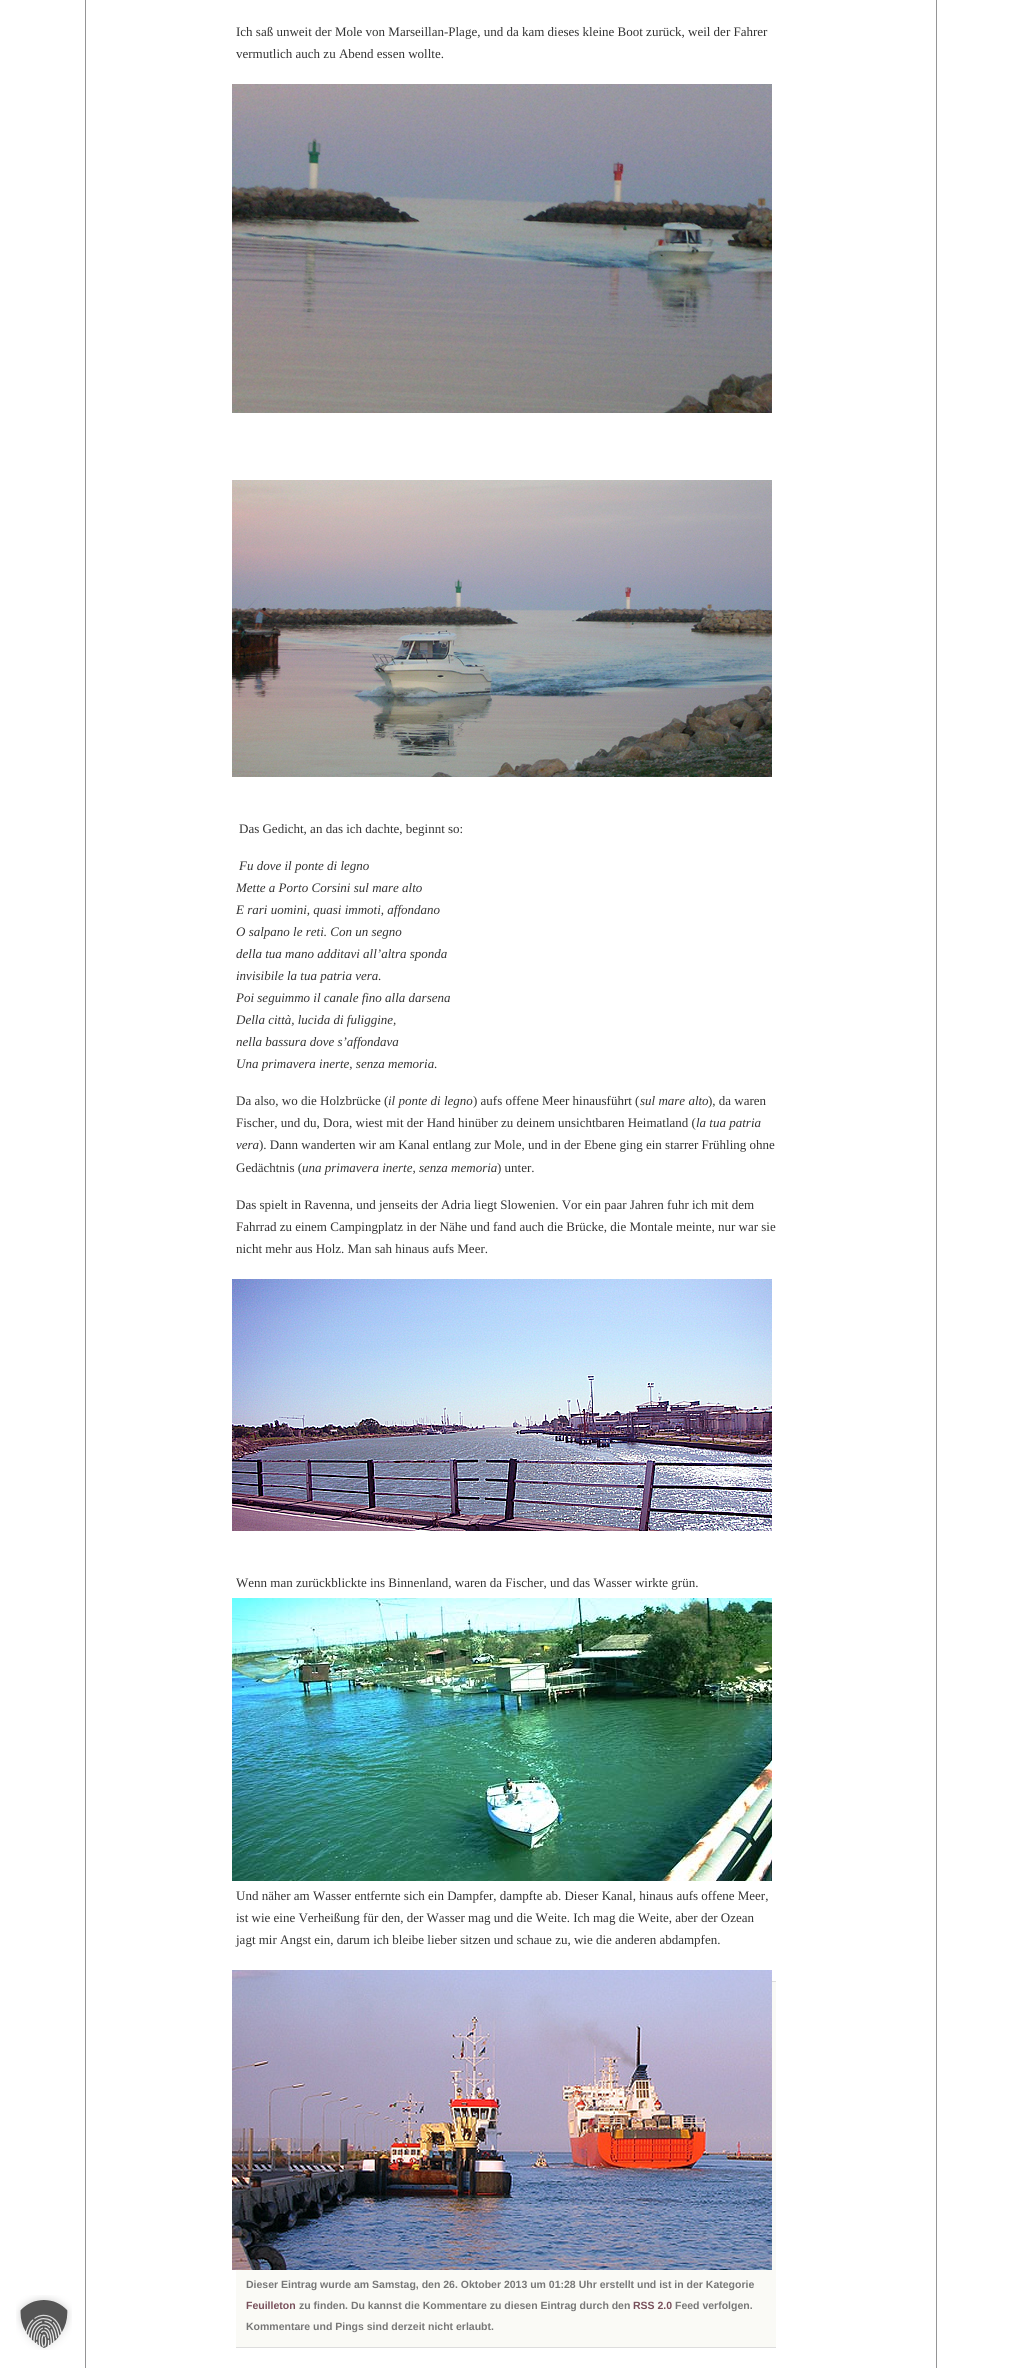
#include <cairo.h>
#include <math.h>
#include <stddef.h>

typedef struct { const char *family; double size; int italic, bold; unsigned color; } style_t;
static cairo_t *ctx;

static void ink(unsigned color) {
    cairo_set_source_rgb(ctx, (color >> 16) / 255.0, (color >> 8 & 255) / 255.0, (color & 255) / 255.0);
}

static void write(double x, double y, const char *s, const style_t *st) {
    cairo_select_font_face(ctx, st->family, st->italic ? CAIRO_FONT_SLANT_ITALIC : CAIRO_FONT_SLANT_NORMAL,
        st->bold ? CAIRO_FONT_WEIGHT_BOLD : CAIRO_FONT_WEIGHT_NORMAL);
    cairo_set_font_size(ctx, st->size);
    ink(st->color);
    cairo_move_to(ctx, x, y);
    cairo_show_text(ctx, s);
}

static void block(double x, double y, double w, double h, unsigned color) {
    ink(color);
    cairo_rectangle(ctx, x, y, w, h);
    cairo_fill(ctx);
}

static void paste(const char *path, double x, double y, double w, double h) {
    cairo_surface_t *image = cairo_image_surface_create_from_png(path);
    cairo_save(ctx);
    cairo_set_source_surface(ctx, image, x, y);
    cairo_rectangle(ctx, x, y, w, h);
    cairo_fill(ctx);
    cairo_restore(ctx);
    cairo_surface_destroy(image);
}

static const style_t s1 = {"Liberation Serif", 13, 0, 0, 0x333333};
static const style_t s2 = {"Liberation Serif", 13, 1, 0, 0x333333};
static const style_t s3 = {"Liberation Sans", 10.5, 0, 1, 0x777777};
static const style_t s4 = {"Liberation Sans", 10.5, 0, 1, 0x78505b};

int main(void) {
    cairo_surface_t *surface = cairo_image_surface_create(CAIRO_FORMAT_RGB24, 1022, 2368);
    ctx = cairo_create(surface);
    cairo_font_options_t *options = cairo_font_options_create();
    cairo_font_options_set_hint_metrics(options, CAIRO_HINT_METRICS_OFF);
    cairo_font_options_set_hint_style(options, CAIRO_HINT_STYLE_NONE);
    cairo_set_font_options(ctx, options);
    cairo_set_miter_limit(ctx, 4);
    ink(0xffffff);
    cairo_paint(ctx);
    paste("pic1.png", 16, 2295, 56, 55);
    cairo_rectangle(ctx, 85.5, -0.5, 851, 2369);
    ink(0x959596);
    cairo_set_line_width(ctx, 1);
    cairo_stroke(ctx);
    write(236, 36, "Ich saß unweit der Mole von Marseillan-Plage, und da kam dieses kleine Boot zurück, weil der Fahrer", &s1);
    write(236, 58, "vermutlich auch zu Abend essen wollte.", &s1);
    paste("pic2.png", 232, 84, 540, 329);
    paste("pic3.png", 232, 480, 540, 297);
    write(239, 833, "Das Gedicht, an das ich dachte, beginnt so:", &s1);
    write(239, 870, "Fu dove il ponte di legno", &s2);
    write(236, 892, "Mette a Porto Corsini sul mare alto", &s2);
    write(236, 914, "E rari uomini, quasi immoti, affondano", &s2);
    write(236, 936, "O salpano le reti. Con un segno", &s2);
    write(236, 958, "della tua mano additavi all’altra sponda", &s2);
    write(236, 980, "invisibile la tua patria vera.", &s2);
    write(236, 1002, "Poi seguimmo il canale fino alla darsena", &s2);
    write(236, 1024, "Della città, lucida di fuliggine,", &s2);
    write(236, 1046, "nella bassura dove s’affondava", &s2);
    write(236, 1068, "Una primavera inerte, senza memoria.", &s2);
    write(236, 1105, "Da also, wo die Holzbrücke (", &s1);
    write(388, 1105, "il ponte di legno", &s2);
    write(473, 1105, ") aufs offene Meer hinausführt (", &s1);
    write(640, 1105, "sul mare alto", &s2);
    write(708, 1105, "), da waren", &s1);
    write(236, 1127, "Fischer, und du, Dora, wiest mit der Hand hinüber zu deinem unsichtbaren Heimatland (", &s1);
    write(696, 1127, "la tua patria", &s2);
    write(236, 1149, "vera", &s2);
    write(259, 1149, "). Dann wanderten wir am Kanal entlang zur Mole, und in der Ebene ging ein starrer Frühling ohne", &s1);
    write(236, 1172, "Gedächtnis (", &s1);
    write(302, 1172, "una primavera inerte, senza memoria", &s2);
    write(497, 1172, ") unter.", &s1);
    write(236, 1209, "Das spielt in Ravenna, und jenseits der Adria liegt Slowenien. Vor ein paar Jahren fuhr ich mit dem", &s1);
    write(236, 1231, "Fahrrad zu einem Campingplatz in der Nähe und fand auch die Brücke, die Montale meinte, nur war sie", &s1);
    write(236, 1253, "nicht mehr aus Holz. Man sah hinaus aufs Meer.", &s1);
    paste("pic4.png", 232, 1279, 540, 252);
    write(236, 1587, "Wenn man zurückblickte ins Binnenland, waren da Fischer, und das Wasser wirkte grün.", &s1);
    paste("pic5.png", 232, 1598, 540, 283);
    write(236, 1900, "Und näher am Wasser entfernte sich ein Dampfer, dampfte ab. Dieser Kanal, hinaus aufs offene Meer,", &s1);
    write(236, 1922, "ist wie eine Verheißung für den, der Wasser mag und die Weite. Ich mag die Weite, aber der Ozean", &s1);
    write(236, 1944, "jagt mir Angst ein, darum ich bleibe lieber sitzen und schaue zu, wie die anderen abdampfen.", &s1);
    block(236, 1982, 540, 365, 0xfafaf6);
    paste("pic6.png", 232, 1970, 540, 300);
    block(772, 1981, 4, 1, 0xdddddd);
    block(236, 2347, 540, 1, 0xdddddd);
    write(246, 2288, "Dieser Eintrag wurde am Samstag, den 26. Oktober 2013 um 01:28 Uhr erstellt und ist in der Kategorie", &s3);
    write(246, 2309, "Feuilleton", &s4);
    write(299, 2309, "zu finden. Du kannst die Kommentare zu diesen Eintrag durch den", &s3);
    write(633, 2309, "RSS 2.0", &s4);
    write(675, 2309, "Feed verfolgen.", &s3);
    write(246, 2330, "Kommentare und Pings sind derzeit nicht erlaubt.", &s3);
    cairo_surface_write_to_png(surface, "screenshot.png");
    cairo_font_options_destroy(options);
    cairo_destroy(ctx);
    cairo_surface_destroy(surface);
    return 0;
}
